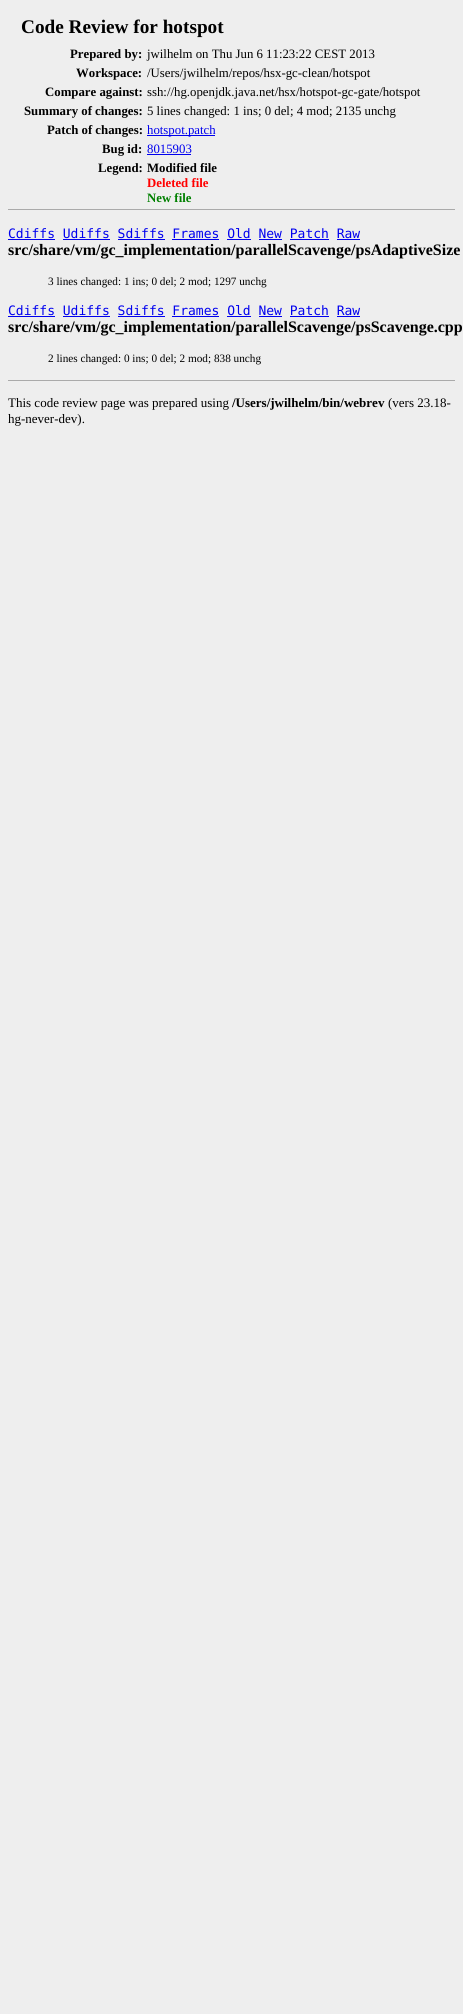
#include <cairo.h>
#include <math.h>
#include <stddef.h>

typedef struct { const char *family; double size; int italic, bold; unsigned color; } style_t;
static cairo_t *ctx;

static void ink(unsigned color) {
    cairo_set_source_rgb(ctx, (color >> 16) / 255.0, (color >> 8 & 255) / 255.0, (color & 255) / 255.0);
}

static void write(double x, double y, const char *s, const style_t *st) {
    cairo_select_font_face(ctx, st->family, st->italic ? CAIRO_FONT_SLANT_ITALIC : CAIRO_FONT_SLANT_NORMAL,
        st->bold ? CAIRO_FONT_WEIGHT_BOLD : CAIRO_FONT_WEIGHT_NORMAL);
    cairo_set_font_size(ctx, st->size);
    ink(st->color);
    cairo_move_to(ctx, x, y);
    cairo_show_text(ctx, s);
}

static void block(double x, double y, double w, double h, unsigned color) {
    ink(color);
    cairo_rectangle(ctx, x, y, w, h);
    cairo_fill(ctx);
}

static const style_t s1 = {"Liberation Serif", 19.25, 0, 1, 0x000000};
static const style_t s2 = {"Liberation Serif", 12.8, 0, 1, 0x000000};
static const style_t s3 = {"Liberation Serif", 12.8, 0, 0, 0x000000};
static const style_t s4 = {"Liberation Serif", 12.8, 0, 0, 0x0000ee};
static const style_t s5 = {"Liberation Serif", 12.8, 0, 1, 0xff0000};
static const style_t s6 = {"Liberation Serif", 12.8, 0, 1, 0x008000};
static const style_t s7 = {"DejaVu Sans Mono", 13, 0, 0, 0x0000ee};
static const style_t s8 = {"Liberation Serif", 16, 0, 1, 0x000000};
static const style_t s9 = {"Liberation Serif", 11.25, 0, 0, 0x000000};
static const style_t s10 = {"Liberation Serif", 13, 0, 0, 0x000000};
static const style_t s11 = {"Liberation Serif", 13, 0, 1, 0x000000};

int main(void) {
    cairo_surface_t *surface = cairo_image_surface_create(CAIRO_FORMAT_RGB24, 463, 2014);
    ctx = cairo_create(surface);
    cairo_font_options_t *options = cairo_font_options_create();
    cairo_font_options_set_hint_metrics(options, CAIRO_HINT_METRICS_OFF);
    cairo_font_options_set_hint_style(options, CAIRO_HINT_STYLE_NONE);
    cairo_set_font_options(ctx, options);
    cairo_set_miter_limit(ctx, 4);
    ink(0xeeeeee);
    cairo_paint(ctx);
    block(8, 209, 447, 1, 0xaaaaaa);
    write(21, 33, "Code Review for hotspot", &s1);
    write(70, 58, "Prepared by:", &s2);
    write(147, 58, "jwilhelm on Thu Jun 6 11:23:22 CEST 2013", &s3);
    write(76, 77, "Workspace:", &s2);
    write(147, 77, "/Users/jwilhelm/repos/hsx-gc-clean/hotspot", &s3);
    write(45, 96, "Compare against:", &s2);
    write(147, 96, "ssh://hg.openjdk.java.net/hsx/hotspot-gc-gate/hotspot", &s3);
    write(24, 115, "Summary of changes:", &s2);
    write(147, 115, "5 lines changed: 1 ins; 0 del; 4 mod; 2135 unchg", &s3);
    write(47, 134, "Patch of changes:", &s2);
    block(147, 135, 68, 1, 0x0000ee);
    write(147, 134, "hotspot.patch", &s4);
    write(102, 153, "Bug id:", &s2);
    write(147, 153, "8015903", &s4);
    block(147, 154, 44, 1, 0x0000ee);
    write(98, 172, "Legend:", &s2);
    write(147, 172, "Modified file", &s2);
    write(147, 187, "Deleted file", &s5);
    write(147, 202, "New file", &s6);
    write(8, 238, "Cdiffs Udiffs Sdiffs Frames Old New Patch Raw", &s7);
    block(8, 239, 47, 1, 0x0000ee);
    block(63, 239, 47, 1, 0x0000ee);
    block(118, 239, 47, 1, 0x0000ee);
    block(172, 239, 47, 1, 0x0000ee);
    block(227, 239, 24, 1, 0x0000ee);
    block(259, 239, 23, 1, 0x0000ee);
    block(290, 239, 39, 1, 0x0000ee);
    block(337, 239, 23, 1, 0x0000ee);
    write(8, 255, "src/share/vm/gc_implementation/parallelScavenge/psAdaptiveSize", &s8);
    write(48, 285, "3 lines changed: 1 ins; 0 del; 2 mod; 1297 unchg", &s9);
    write(8, 315, "Cdiffs Udiffs Sdiffs Frames Old New Patch Raw", &s7);
    block(8, 316, 47, 1, 0x0000ee);
    block(63, 316, 47, 1, 0x0000ee);
    block(118, 316, 47, 1, 0x0000ee);
    block(172, 316, 47, 1, 0x0000ee);
    block(227, 316, 24, 1, 0x0000ee);
    block(259, 316, 23, 1, 0x0000ee);
    block(290, 316, 39, 1, 0x0000ee);
    block(337, 316, 23, 1, 0x0000ee);
    write(8, 332, "src/share/vm/gc_implementation/parallelScavenge/psScavenge.cpp", &s8);
    write(48, 362, "2 lines changed: 0 ins; 0 del; 2 mod; 838 unchg", &s9);
    block(8, 380, 447, 1, 0xaaaaaa);
    write(8, 407, "This code review page was prepared using", &s10);
    write(232, 407, "/Users/jwilhelm/bin/webrev", &s11);
    write(388, 407, "(vers 23.18-", &s10);
    write(8, 423, "hg-never-dev).", &s10);
    cairo_surface_write_to_png(surface, "screenshot.png");
    cairo_font_options_destroy(options);
    cairo_destroy(ctx);
    cairo_surface_destroy(surface);
    return 0;
}
